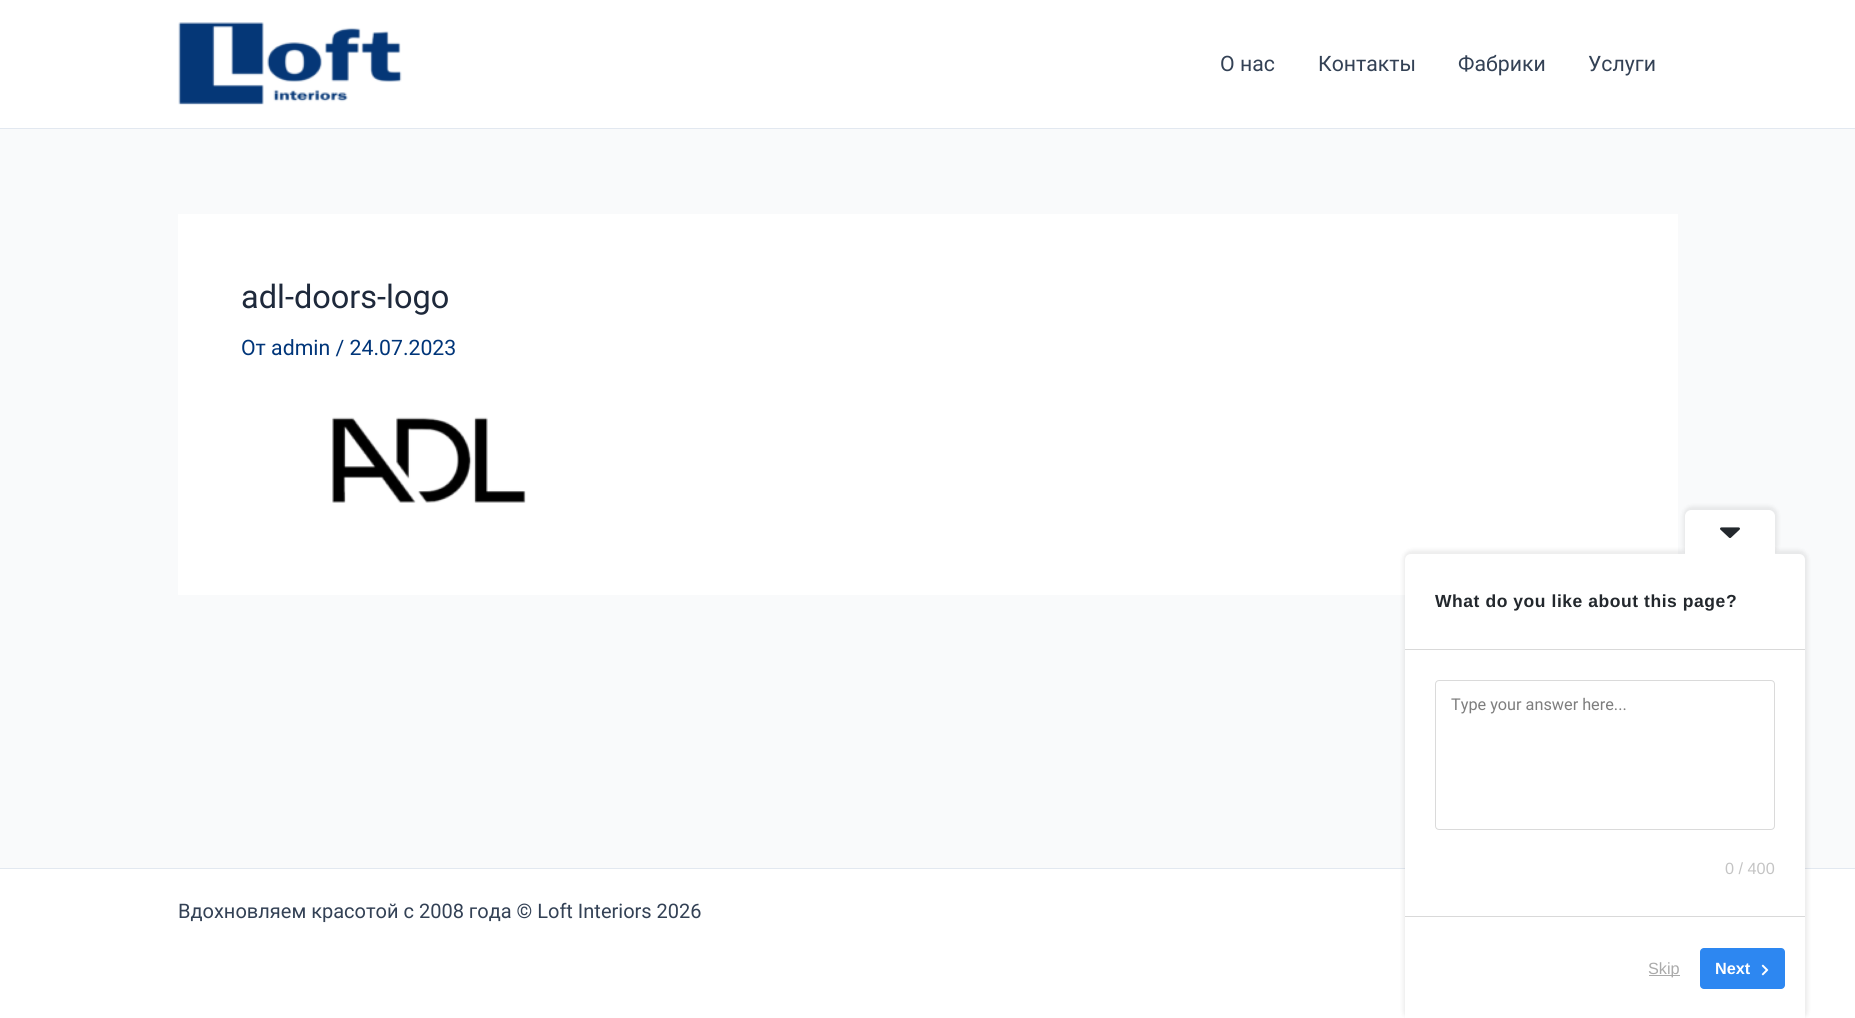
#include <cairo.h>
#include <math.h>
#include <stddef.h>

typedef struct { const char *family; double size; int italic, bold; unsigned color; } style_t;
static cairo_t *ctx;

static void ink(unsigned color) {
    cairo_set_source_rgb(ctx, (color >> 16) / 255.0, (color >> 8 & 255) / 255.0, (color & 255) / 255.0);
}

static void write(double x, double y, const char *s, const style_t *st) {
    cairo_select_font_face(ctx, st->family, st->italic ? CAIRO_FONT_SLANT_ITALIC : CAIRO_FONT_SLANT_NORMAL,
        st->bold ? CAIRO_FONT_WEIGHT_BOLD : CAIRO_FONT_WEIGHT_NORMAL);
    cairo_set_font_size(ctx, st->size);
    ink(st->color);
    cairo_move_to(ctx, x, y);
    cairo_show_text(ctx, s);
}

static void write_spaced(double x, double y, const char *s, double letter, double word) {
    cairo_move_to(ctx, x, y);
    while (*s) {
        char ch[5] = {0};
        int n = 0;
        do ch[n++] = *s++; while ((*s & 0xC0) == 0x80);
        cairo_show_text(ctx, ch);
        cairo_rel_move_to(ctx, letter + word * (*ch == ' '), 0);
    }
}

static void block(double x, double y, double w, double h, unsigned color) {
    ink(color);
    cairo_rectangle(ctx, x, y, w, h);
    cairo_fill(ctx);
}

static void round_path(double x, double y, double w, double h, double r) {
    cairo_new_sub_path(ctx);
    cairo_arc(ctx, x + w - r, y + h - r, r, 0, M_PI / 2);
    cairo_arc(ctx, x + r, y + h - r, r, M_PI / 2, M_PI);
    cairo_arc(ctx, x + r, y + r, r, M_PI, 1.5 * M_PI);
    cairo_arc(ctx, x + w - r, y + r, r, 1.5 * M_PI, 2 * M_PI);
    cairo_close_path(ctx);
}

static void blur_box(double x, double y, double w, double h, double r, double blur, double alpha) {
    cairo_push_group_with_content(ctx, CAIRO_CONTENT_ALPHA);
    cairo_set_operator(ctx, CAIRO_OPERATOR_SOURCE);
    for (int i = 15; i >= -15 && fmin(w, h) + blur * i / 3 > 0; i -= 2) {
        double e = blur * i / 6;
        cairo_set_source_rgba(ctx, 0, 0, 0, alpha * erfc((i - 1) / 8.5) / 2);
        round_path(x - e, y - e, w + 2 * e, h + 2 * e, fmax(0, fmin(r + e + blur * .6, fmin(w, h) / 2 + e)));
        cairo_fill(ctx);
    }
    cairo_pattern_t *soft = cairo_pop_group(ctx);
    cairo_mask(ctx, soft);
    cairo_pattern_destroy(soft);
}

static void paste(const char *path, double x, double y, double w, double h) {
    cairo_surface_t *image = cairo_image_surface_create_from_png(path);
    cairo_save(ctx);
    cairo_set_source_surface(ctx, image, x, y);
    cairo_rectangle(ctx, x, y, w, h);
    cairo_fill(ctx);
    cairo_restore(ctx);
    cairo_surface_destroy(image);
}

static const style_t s1 = {"Roboto", 21.25, 0, 0, 0x334155};
static const style_t s2 = {"Roboto", 32.5, 0, 0, 0x1e293b};
static const style_t s3 = {"Roboto", 21.25, 0, 0, 0x003579};
static const style_t s4 = {"Roboto", 20, 0, 0, 0x334155};
static const style_t s5 = {"Roboto", 16.25, 0, 0, 0x7e7e7e};
static const style_t s6 = {"Liberation Sans", 16.25, 0, 0, 0xc4c4c4};
static const style_t s7 = {"Liberation Sans", 16.25, 0, 0, 0xaaaaaa};
static const style_t s8 = {"Liberation Sans", 16.25, 0, 1, 0xffffff};

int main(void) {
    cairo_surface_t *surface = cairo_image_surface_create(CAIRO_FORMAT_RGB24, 1855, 1018);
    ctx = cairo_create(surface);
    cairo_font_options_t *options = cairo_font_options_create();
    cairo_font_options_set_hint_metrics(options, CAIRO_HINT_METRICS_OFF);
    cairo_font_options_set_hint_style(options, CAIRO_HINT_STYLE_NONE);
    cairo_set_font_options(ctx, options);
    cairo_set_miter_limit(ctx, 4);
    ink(0xf9fafb);
    cairo_paint(ctx);
    block(0, 0, 1855, 128, 0xffffff);
    block(0, 128, 1855, 1, 0xe2e8f0);
    paste("pic1.png", 178, 22, 224, 83);
    write(1220, 71, "О нас", &s1);
    write(1318, 71, "Контакты", &s1);
    write(1458, 71, "Фабрики", &s1);
    write(1588, 71, "Услуги", &s1);
    block(178, 214, 1500, 381, 0xffffff);
    write(241, 308, "adl-doors-logo", &s2);
    write(241, 355, "От admin / 24.07.2023", &s3);
    paste("pic2.png", 332, 417, 194, 86);
    block(0, 869, 1855, 149, 0xffffff);
    block(0, 868, 1855, 1, 0xe2e8f0);
    write(178, 918, "Вдохновляем красотой с 2008 года © Loft Interiors 2026", &s4);
    ink(0x000000);
    blur_box(1403, 550, 405, 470, 9, 2, 0.07);
    ink(0xffffff);
    cairo_new_path(ctx);
    cairo_move_to(ctx, 1411, 554);
    cairo_line_to(ctx, 1799, 554);
    cairo_curve_to(ctx, 1802.5, 554, 1805, 556.5, 1805, 560);
    cairo_line_to(ctx, 1805, 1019);
    cairo_line_to(ctx, 1405, 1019);
    cairo_line_to(ctx, 1405, 560);
    cairo_curve_to(ctx, 1405, 556.5, 1407.5, 554, 1411, 554);
    cairo_close_path(ctx);
    cairo_fill(ctx);
    cairo_save(ctx);
    cairo_new_path(ctx);
    cairo_move_to(ctx, 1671.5, 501);
    cairo_line_to(ctx, 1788.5, 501);
    cairo_line_to(ctx, 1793, 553.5);
    cairo_line_to(ctx, 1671.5, 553.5);
    cairo_close_path(ctx);
    cairo_clip(ctx);
    ink(0x000000);
    blur_box(1683, 506, 95, 49, 9, 2, 0.07);
    cairo_restore(ctx);
    cairo_new_path(ctx);
    cairo_move_to(ctx, 1691, 510);
    cairo_line_to(ctx, 1769, 510);
    cairo_curve_to(ctx, 1772, 510, 1775, 513, 1775, 516);
    cairo_line_to(ctx, 1775, 554);
    cairo_line_to(ctx, 1685, 554);
    cairo_line_to(ctx, 1685, 516);
    cairo_curve_to(ctx, 1685, 513, 1688, 510, 1691, 510);
    cairo_close_path(ctx);
    cairo_fill(ctx);
    paste("pic3.png", 1720, 527, 20, 11);
    cairo_select_font_face(ctx, "Liberation Sans", CAIRO_FONT_SLANT_NORMAL, CAIRO_FONT_WEIGHT_BOLD);
    cairo_set_font_size(ctx, 17.5);
    ink(0x23282d);
    write_spaced(1435, 607, "What do you like about this page?", 0.55, 0);
    block(1405, 649, 400, 1, 0xd9d9d9);
    block(1405, 916, 400, 1, 0xd9d9d9);
    round_path(1435.5, 680.5, 339, 149, 3.5);
    ink(0xdadada);
    cairo_set_line_width(ctx, 1);
    cairo_stroke(ctx);
    write(1451, 710, "Type your answer here...", &s5);
    write(1725, 874, "0 / 400", &s6);
    block(1649, 975, 31, 1, 0xaaaaaa);
    write(1648, 974, "Skip", &s7);
    ink(0x2d87f1);
    round_path(1700, 948, 85, 41, 4);
    cairo_fill(ctx);
    write(1715, 974, "Next", &s8);
    paste("pic4.png", 1761, 964, 8, 12);
    cairo_surface_write_to_png(surface, "screenshot.png");
    cairo_font_options_destroy(options);
    cairo_destroy(ctx);
    cairo_surface_destroy(surface);
    return 0;
}
